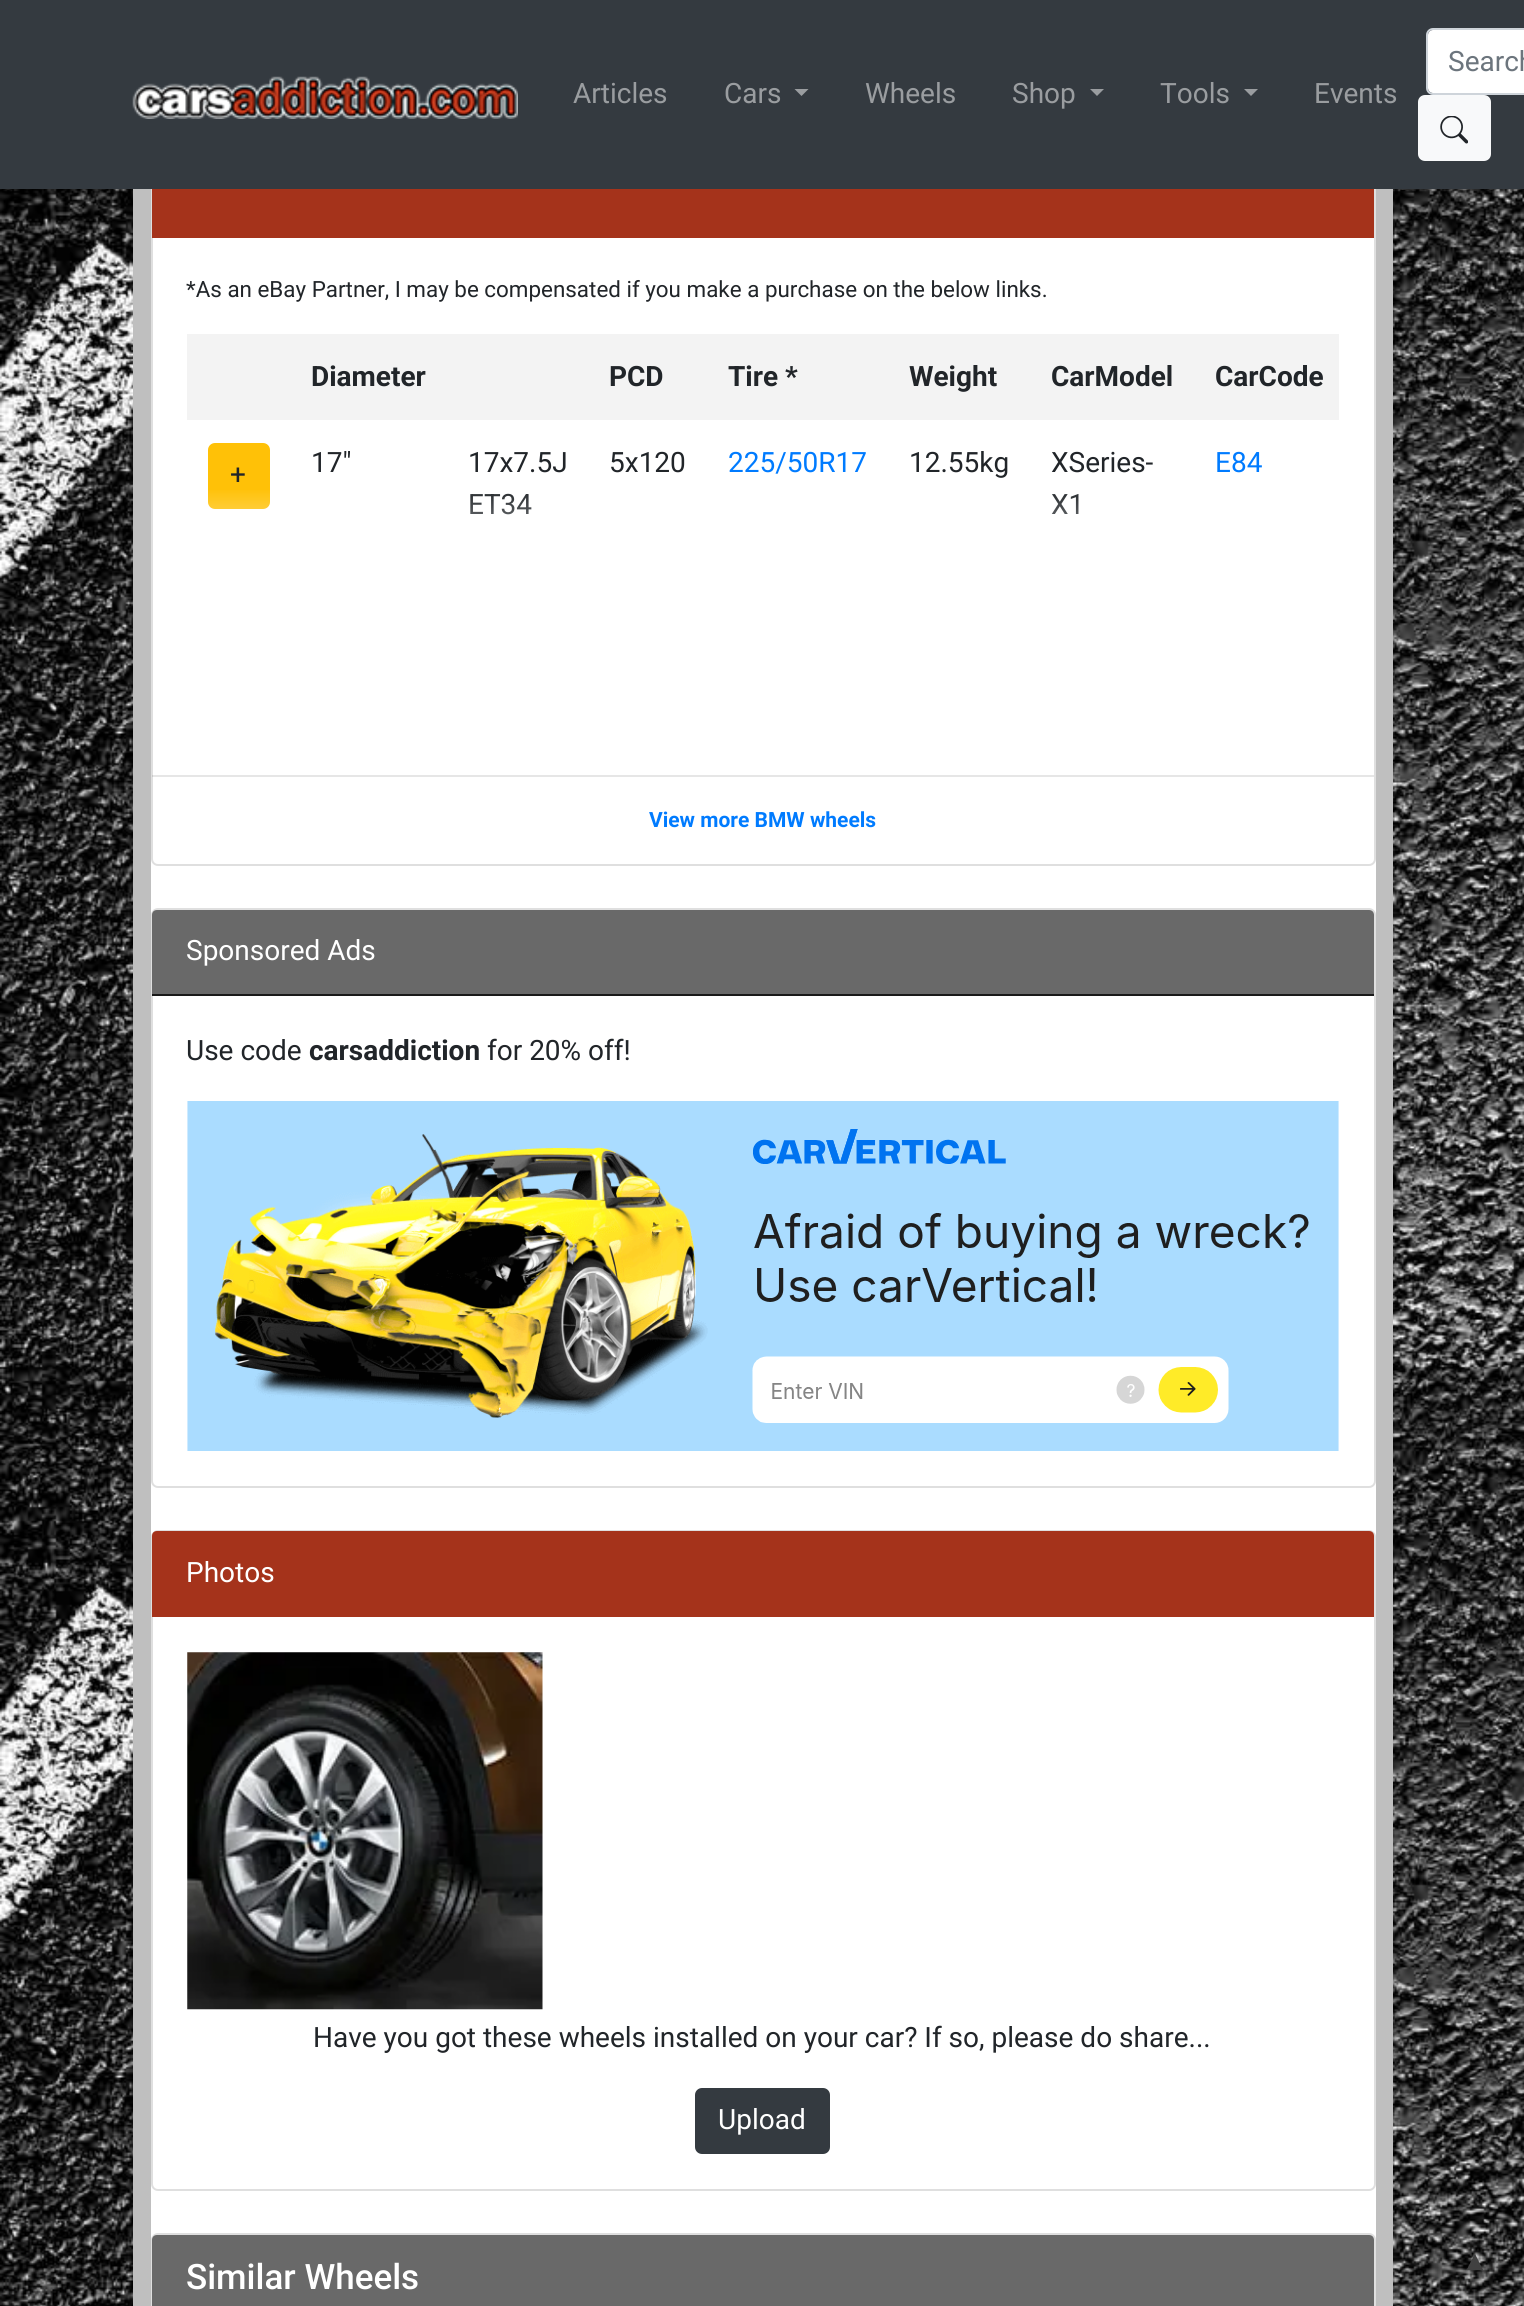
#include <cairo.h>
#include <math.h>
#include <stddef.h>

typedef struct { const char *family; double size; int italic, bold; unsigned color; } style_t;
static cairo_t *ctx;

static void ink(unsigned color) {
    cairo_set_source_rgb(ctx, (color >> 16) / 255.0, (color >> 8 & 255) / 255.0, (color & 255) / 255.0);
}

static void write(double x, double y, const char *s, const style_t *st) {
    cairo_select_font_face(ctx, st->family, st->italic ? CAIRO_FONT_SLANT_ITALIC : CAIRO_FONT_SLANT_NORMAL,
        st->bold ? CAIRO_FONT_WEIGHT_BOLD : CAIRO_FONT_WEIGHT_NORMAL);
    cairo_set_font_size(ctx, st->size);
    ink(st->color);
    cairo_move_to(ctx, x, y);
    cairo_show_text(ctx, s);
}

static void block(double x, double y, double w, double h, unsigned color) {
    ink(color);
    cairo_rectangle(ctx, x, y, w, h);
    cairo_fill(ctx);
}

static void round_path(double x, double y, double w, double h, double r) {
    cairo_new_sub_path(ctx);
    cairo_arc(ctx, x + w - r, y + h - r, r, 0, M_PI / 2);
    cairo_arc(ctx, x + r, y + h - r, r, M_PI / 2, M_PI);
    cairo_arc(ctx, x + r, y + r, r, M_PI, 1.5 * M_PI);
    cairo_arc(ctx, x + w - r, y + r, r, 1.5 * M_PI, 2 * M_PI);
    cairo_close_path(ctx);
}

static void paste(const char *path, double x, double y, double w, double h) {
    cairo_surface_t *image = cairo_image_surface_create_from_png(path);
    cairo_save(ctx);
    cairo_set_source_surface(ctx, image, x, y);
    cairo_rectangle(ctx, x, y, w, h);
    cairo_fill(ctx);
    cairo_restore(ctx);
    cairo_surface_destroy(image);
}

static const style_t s1 = {"Roboto", 28, 0, 0, 0x6c757d};
static const style_t s2 = {"Roboto", 28, 0, 0, 0x9a9da0};
static const style_t s3 = {"Roboto", 22.4, 0, 0, 0x212529};
static const style_t s4 = {"Roboto", 28, 0, 1, 0x212529};
static const style_t s5 = {"Roboto", 28, 0, 0, 0x212529};
static const style_t s6 = {"Roboto", 28, 0, 0, 0x007bff};
static const style_t s7 = {"Roboto", 21, 0, 1, 0x007bff};
static const style_t s8 = {"Roboto", 28, 0, 0, 0xffffff};
static const style_t s9 = {"Roboto Medium", 35, 0, 0, 0xffffff};
static const style_t s10 = {"Liberation Sans", 28, 0, 1, 0x414141};

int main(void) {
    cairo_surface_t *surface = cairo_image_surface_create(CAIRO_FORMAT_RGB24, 1524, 2306);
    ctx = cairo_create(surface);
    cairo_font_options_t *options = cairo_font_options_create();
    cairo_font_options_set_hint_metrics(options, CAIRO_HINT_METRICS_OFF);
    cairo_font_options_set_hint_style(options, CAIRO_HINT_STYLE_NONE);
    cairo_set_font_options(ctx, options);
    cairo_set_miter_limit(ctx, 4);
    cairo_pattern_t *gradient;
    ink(0xffffff);
    cairo_paint(ctx);
    paste("pic1.png", 0, 189, 1524, 2117);
    block(151, 238, 1225, 2002, 0xffffff);
    round_path(152, 120, 1223, 745, 6);
    ink(0xdfdfdf);
    cairo_stroke(ctx);
    block(0, 0, 1524, 189, 0x343a40);
    paste("pic2.png", 132, 76, 386, 43);
    ink(0xffffff);
    round_path(1428, 30, 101, 63, 5);
    cairo_fill(ctx);
    round_path(1427, 29, 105, 65, 6);
    ink(0xced4da);
    cairo_stroke(ctx);
    write(1448, 71, "Search", &s1);
    ink(0xf8f9fa);
    round_path(1419, 96, 71, 64, 6);
    cairo_fill_preserve(ctx);
    cairo_stroke(ctx);
    paste("pic3.png", 1440, 116, 28, 28);
    write(573, 103, "Articles", &s2);
    write(724, 103, "Cars", &s2);
    cairo_new_path(ctx);
    cairo_move_to(ctx, 794.5, 89);
    cairo_line_to(ctx, 808.5, 89);
    cairo_line_to(ctx, 801.5, 96);
    cairo_close_path(ctx);
    cairo_fill(ctx);
    write(865, 103, "Wheels", &s2);
    write(1012, 103, "Shop", &s2);
    cairo_new_path(ctx);
    cairo_move_to(ctx, 1090, 89);
    cairo_line_to(ctx, 1104, 89);
    cairo_line_to(ctx, 1097, 96);
    cairo_close_path(ctx);
    cairo_fill(ctx);
    write(1160, 103, "Tools", &s2);
    cairo_new_path(ctx);
    cairo_move_to(ctx, 1244, 89);
    cairo_line_to(ctx, 1258, 89);
    cairo_line_to(ctx, 1251, 96);
    cairo_close_path(ctx);
    cairo_fill(ctx);
    write(1314, 103, "Events", &s2);
    block(1376, 189, 17, 2117, 0xbfbfbf);
    block(133, 189, 18, 2117, 0xbfbfbf);
    block(152, 189, 1222, 49, 0xa5331b);
    write(186, 297, "*As an eBay Partner, I may be compensated if you make a purchase on the below links.", &s3);
    block(187, 334, 1152, 86, 0xf3f3f3);
    write(311, 386, "Diameter", &s4);
    write(609, 386, "PCD", &s4);
    write(728, 386, "Tire *", &s4);
    write(909, 386, "Weight", &s4);
    write(1051, 386, "CarModel", &s4);
    write(1215, 386, "CarCode", &s4);
    ink(0xffc107);
    round_path(209, 444, 60, 64, 6);
    cairo_fill_preserve(ctx);
    cairo_stroke(ctx);
    write(230, 484, "+", &s5);
    write(311, 472, "17\"", &s5);
    write(468, 472, "17x7.5J", &s5);
    write(468, 514, "ET34", &s5);
    write(609, 472, "5x120", &s5);
    write(728, 472, "225/50R17", &s6);
    write(909, 472, "12.55kg", &s5);
    write(1051, 472, "XSeries-", &s5);
    write(1051, 514, "X1", &s5);
    write(1215, 472, "E84", &s6);
    gradient = cairo_pattern_create_linear(763, 488, 763, 600);
    cairo_pattern_add_color_stop_rgba(gradient, 0, 1, 1, 1, 0);
    cairo_pattern_add_color_stop_rgba(gradient, 1, 1, 1, 1, 1);
    cairo_set_source(ctx, gradient);
    cairo_pattern_destroy(gradient);
    cairo_rectangle(ctx, 208, 490, 871, 25);
    cairo_fill(ctx);
    cairo_set_source_rgba(ctx, 0, 0, 0, 0.1);
    cairo_rectangle(ctx, 152, 775, 1222, 2);
    cairo_fill(ctx);
    write(649, 827, "View more BMW wheels", &s7);
    round_path(152, 909, 1223, 578, 6);
    ink(0xdfdfdf);
    cairo_stroke(ctx);
    ink(0x696969);
    cairo_new_path(ctx);
    cairo_move_to(ctx, 157, 910);
    cairo_line_to(ctx, 1369, 910);
    cairo_curve_to(ctx, 1372, 910, 1374, 912, 1374, 915);
    cairo_line_to(ctx, 1374, 996);
    cairo_line_to(ctx, 152, 996);
    cairo_line_to(ctx, 152, 915);
    cairo_curve_to(ctx, 152, 912, 154, 910, 157, 910);
    cairo_close_path(ctx);
    cairo_fill(ctx);
    block(152, 994, 1222, 2, 0x191919);
    write(186, 960, "Sponsored Ads", &s8);
    write(186, 1060, "Use code", &s5);
    write(309, 1060, "carsaddiction", &s4);
    write(487, 1060, "for 20% off!", &s5);
    paste("pic4.png", 187, 1101, 1152, 350);
    round_path(152, 1531, 1223, 659, 6);
    ink(0xdfdfdf);
    cairo_stroke(ctx);
    ink(0xa5331b);
    cairo_new_path(ctx);
    cairo_move_to(ctx, 157, 1531);
    cairo_line_to(ctx, 1369, 1531);
    cairo_curve_to(ctx, 1372, 1531, 1374, 1533, 1374, 1536);
    cairo_line_to(ctx, 1374, 1617);
    cairo_line_to(ctx, 152, 1617);
    cairo_line_to(ctx, 152, 1536);
    cairo_curve_to(ctx, 152, 1533, 154, 1531, 157, 1531);
    cairo_close_path(ctx);
    cairo_fill(ctx);
    write(186, 1582, "Photos", &s8);
    paste("pic5.png", 187, 1652, 356, 358);
    write(313, 2047, "Have you got these wheels installed on your car? If so, please do share...", &s5);
    ink(0x343a40);
    round_path(696, 2089, 133, 64, 6);
    cairo_fill_preserve(ctx);
    cairo_stroke(ctx);
    write(718, 2129, "Upload", &s8);
    round_path(152, 2234, 1223, 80, 6);
    ink(0xdfdfdf);
    cairo_stroke(ctx);
    ink(0x696969);
    cairo_new_path(ctx);
    cairo_move_to(ctx, 157, 2235);
    cairo_line_to(ctx, 1369, 2235);
    cairo_curve_to(ctx, 1372, 2235, 1374, 2237, 1374, 2240);
    cairo_line_to(ctx, 1374, 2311);
    cairo_line_to(ctx, 152, 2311);
    cairo_line_to(ctx, 152, 2240);
    cairo_curve_to(ctx, 152, 2237, 154, 2235, 157, 2235);
    cairo_close_path(ctx);
    cairo_fill(ctx);
    write(186, 2289, "Similar Wheels", &s9);
    write(1461, 2270, "▲", &s10);
    cairo_surface_write_to_png(surface, "screenshot.png");
    cairo_font_options_destroy(options);
    cairo_destroy(ctx);
    cairo_surface_destroy(surface);
    return 0;
}
